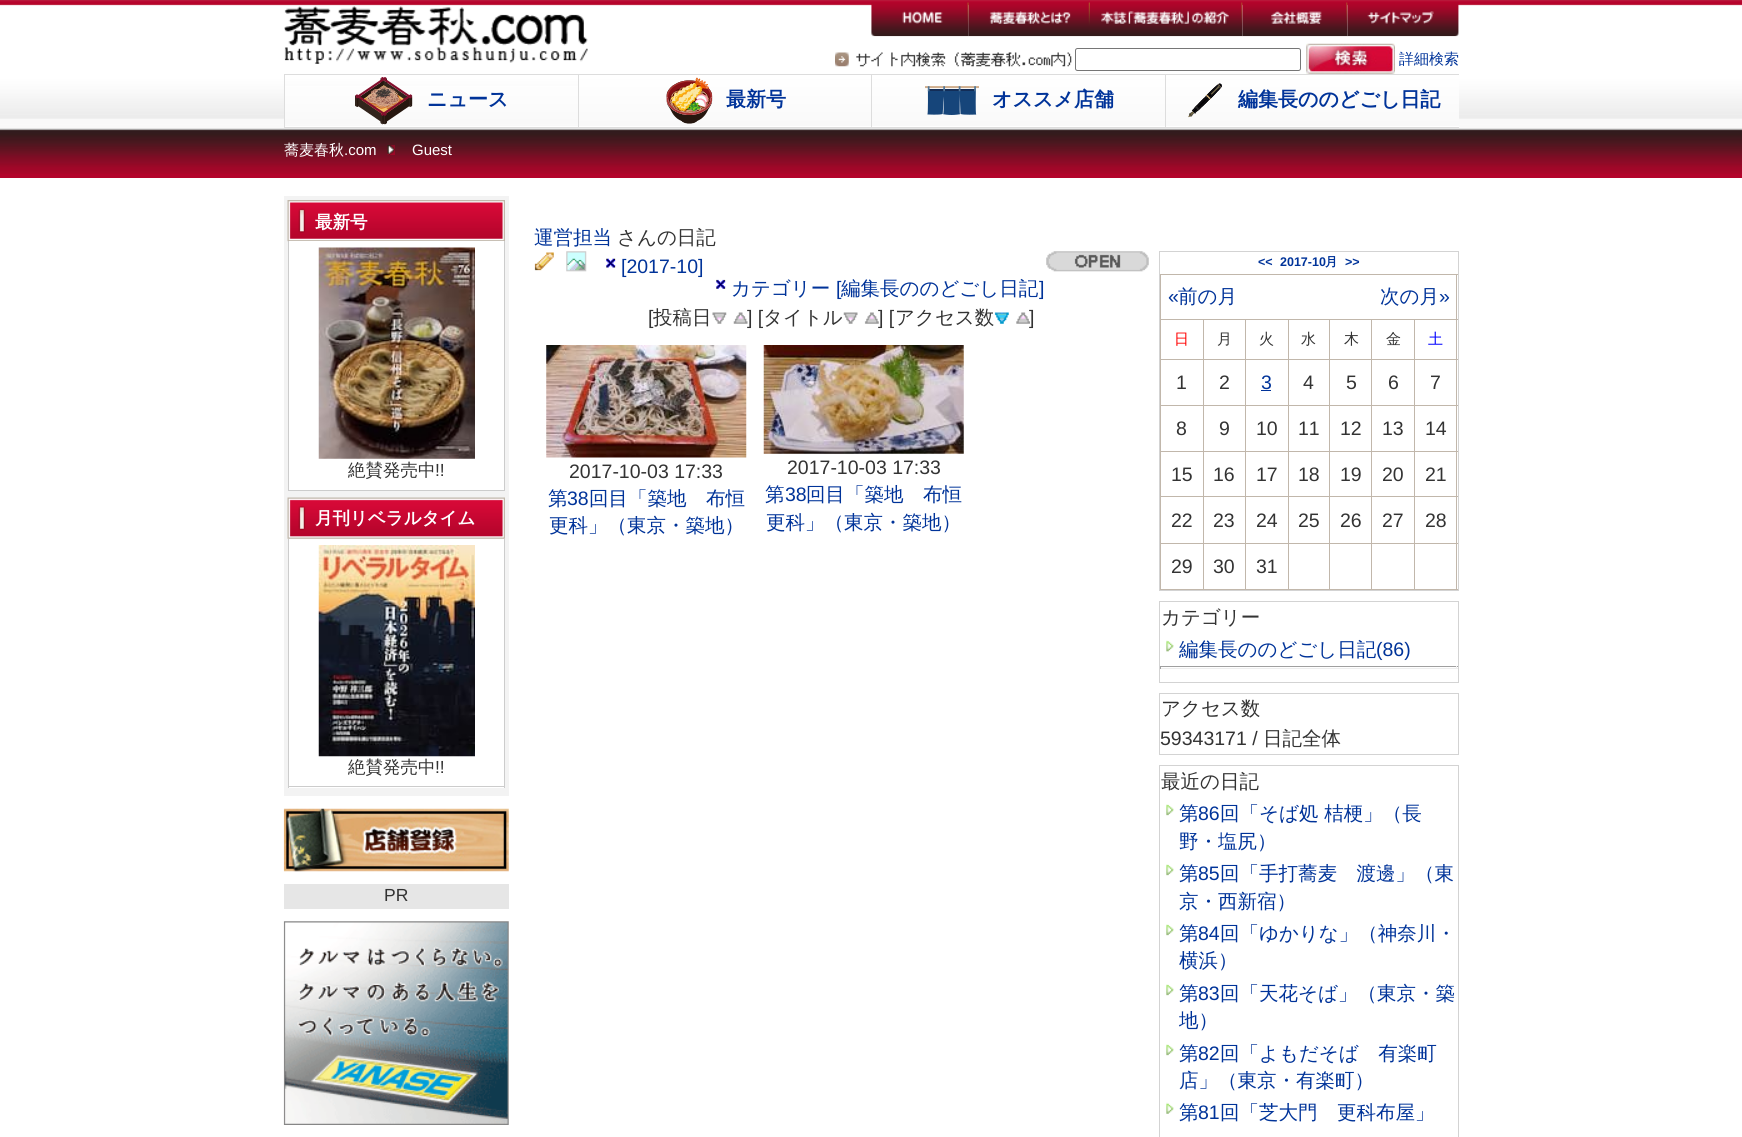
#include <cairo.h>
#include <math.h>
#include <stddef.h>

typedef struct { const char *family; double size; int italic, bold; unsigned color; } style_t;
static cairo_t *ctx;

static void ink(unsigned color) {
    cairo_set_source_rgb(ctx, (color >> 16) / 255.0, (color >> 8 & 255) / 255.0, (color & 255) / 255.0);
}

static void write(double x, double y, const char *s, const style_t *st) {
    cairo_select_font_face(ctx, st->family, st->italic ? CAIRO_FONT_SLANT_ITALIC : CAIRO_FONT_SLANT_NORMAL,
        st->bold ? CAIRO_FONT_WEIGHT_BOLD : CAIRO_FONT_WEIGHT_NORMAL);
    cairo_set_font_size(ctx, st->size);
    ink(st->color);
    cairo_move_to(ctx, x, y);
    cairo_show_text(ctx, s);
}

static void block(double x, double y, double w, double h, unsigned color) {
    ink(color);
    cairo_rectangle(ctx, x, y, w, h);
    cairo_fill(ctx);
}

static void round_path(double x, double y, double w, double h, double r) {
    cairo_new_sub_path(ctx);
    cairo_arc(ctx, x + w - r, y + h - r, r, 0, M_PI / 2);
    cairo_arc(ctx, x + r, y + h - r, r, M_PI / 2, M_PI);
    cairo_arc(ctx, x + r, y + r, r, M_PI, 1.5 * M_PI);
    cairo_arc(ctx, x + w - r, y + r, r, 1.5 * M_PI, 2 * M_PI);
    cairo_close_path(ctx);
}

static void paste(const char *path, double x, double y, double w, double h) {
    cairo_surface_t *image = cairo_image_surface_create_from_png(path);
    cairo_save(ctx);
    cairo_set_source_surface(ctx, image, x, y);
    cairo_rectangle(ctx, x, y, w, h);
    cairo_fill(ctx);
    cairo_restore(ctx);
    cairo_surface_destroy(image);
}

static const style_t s1 = {"WenQuanYi Zen Hei Medium", 15, 0, 0, 0x003399};
static const style_t s2 = {"WenQuanYi Zen Hei", 20, 0, 1, 0x003399};
static const style_t s3 = {"WenQuanYi Zen Hei Medium", 15, 0, 0, 0xffffff};
static const style_t s4 = {"Liberation Sans", 15, 0, 0, 0xffffff};
static const style_t s5 = {"WenQuanYi Zen Hei", 17.5, 0, 1, 0xffffff};
static const style_t s6 = {"WenQuanYi Zen Hei Medium", 17.5, 0, 0, 0x333333};
static const style_t s7 = {"Liberation Sans", 17.5, 0, 0, 0x333333};
static const style_t s8 = {"WenQuanYi Zen Hei Medium", 19.5, 0, 0, 0x003399};
static const style_t s9 = {"WenQuanYi Zen Hei Medium", 19.5, 0, 0, 0x333333};
static const style_t s10 = {"Liberation Sans", 19.5, 0, 0, 0x003399};
static const style_t s11 = {"Liberation Sans", 19.5, 0, 0, 0x333333};
static const style_t s12 = {"Liberation Sans", 12.5, 0, 1, 0x003399};
static const style_t s13 = {"WenQuanYi Zen Hei", 12.5, 0, 1, 0x003399};
static const style_t s14 = {"WenQuanYi Zen Hei Medium", 15, 0, 0, 0xff0000};
static const style_t s15 = {"WenQuanYi Zen Hei Medium", 15, 0, 0, 0x333333};
static const style_t s16 = {"WenQuanYi Zen Hei Medium", 15, 0, 0, 0x0000ff};

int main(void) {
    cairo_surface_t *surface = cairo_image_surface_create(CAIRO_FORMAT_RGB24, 1742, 1137);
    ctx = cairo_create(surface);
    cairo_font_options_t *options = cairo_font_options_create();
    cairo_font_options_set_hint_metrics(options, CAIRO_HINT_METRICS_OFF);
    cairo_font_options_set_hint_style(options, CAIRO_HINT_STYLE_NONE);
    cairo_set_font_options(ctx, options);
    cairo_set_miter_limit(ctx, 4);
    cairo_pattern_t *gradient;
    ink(0xffffff);
    cairo_paint(ctx);
    block(0, 174, 1742, 4, 0xb3042b);
    paste("pic1.png", 0, 0, 1742, 174);
    paste("pic2.png", 284, 6, 304, 58);
    paste("pic3.png", 871, 2, 98, 35);
    paste("pic4.png", 968, 2, 122, 35);
    paste("pic5.png", 1090, 2, 153, 35);
    paste("pic6.png", 1242, 2, 106, 35);
    paste("pic7.png", 1347, 2, 112, 35);
    paste("pic8.png", 835, 52, 237, 15);
    round_path(1075.5, 48.5, 225, 22, 2);
    ink(0x767676);
    cairo_set_line_width(ctx, 1);
    cairo_stroke(ctx);
    block(1306, 44, 89, 30, 0xefefef);
    paste("pic9.png", 1306, 43, 89, 31);
    write(1399, 64, "詳細検索", &s1);
    gradient = cairo_pattern_create_linear(432, 75, 432, 126);
    cairo_pattern_add_color_stop_rgba(gradient, 0, 1, 1, 1, 1);
    cairo_pattern_add_color_stop_rgba(gradient, 1, 0.976, 0.976, 0.976, 1);
    cairo_set_source(ctx, gradient);
    cairo_pattern_destroy(gradient);
    cairo_rectangle(ctx, 285, 86, 293, 33);
    cairo_fill(ctx);
    gradient = cairo_pattern_create_linear(432, 126, 432, 178);
    cairo_pattern_add_color_stop_rgba(gradient, 0, 1, 1, 1, 1);
    cairo_pattern_add_color_stop_rgba(gradient, 1, 0.976, 0.976, 0.976, 1);
    cairo_set_source(ctx, gradient);
    cairo_pattern_destroy(gradient);
    cairo_rectangle(ctx, 284, 126, 296, 1);
    cairo_fill(ctx);
    cairo_rectangle(ctx, 284.5, 74.5, 295, 53);
    ink(0xdddddd);
    cairo_stroke(ctx);
    paste("pic10.png", 355, 77, 58, 48);
    write(427, 106, "ニュース", &s2);
    gradient = cairo_pattern_create_linear(726, 75, 726, 126);
    cairo_pattern_add_color_stop_rgba(gradient, 0, 1, 1, 1, 1);
    cairo_pattern_add_color_stop_rgba(gradient, 1, 0.976, 0.976, 0.976, 1);
    cairo_set_source(ctx, gradient);
    cairo_pattern_destroy(gradient);
    cairo_rectangle(ctx, 579, 75, 292, 51);
    cairo_fill(ctx);
    gradient = cairo_pattern_create_linear(726, 126, 726, 178);
    cairo_pattern_add_color_stop_rgba(gradient, 0, 1, 1, 1, 1);
    cairo_pattern_add_color_stop_rgba(gradient, 1, 0.976, 0.976, 0.976, 1);
    cairo_set_source(ctx, gradient);
    cairo_pattern_destroy(gradient);
    cairo_rectangle(ctx, 578, 126, 296, 1);
    cairo_fill(ctx);
    cairo_rectangle(ctx, 578.5, 74.5, 295, 53);
    ink(0xdddddd);
    cairo_stroke(ctx);
    paste("pic11.png", 666, 77, 47, 47);
    write(726, 106, "最新号", &s2);
    gradient = cairo_pattern_create_linear(1019, 75, 1019, 126);
    cairo_pattern_add_color_stop_rgba(gradient, 0, 1, 1, 1, 1);
    cairo_pattern_add_color_stop_rgba(gradient, 1, 0.976, 0.976, 0.976, 1);
    cairo_set_source(ctx, gradient);
    cairo_pattern_destroy(gradient);
    cairo_rectangle(ctx, 872, 75, 293, 51);
    cairo_fill(ctx);
    gradient = cairo_pattern_create_linear(1019, 126, 1019, 178);
    cairo_pattern_add_color_stop_rgba(gradient, 0, 1, 1, 1, 1);
    cairo_pattern_add_color_stop_rgba(gradient, 1, 0.976, 0.976, 0.976, 1);
    cairo_set_source(ctx, gradient);
    cairo_pattern_destroy(gradient);
    cairo_rectangle(ctx, 871, 126, 297, 1);
    cairo_fill(ctx);
    cairo_rectangle(ctx, 871.5, 74.5, 296, 53);
    ink(0xdddddd);
    cairo_stroke(ctx);
    paste("pic12.png", 925, 86, 54, 29);
    write(992, 106, "オススメ店舗", &s2);
    gradient = cairo_pattern_create_linear(1313, 75, 1313, 126);
    cairo_pattern_add_color_stop_rgba(gradient, 0, 1, 1, 1, 1);
    cairo_pattern_add_color_stop_rgba(gradient, 1, 0.976, 0.976, 0.976, 1);
    cairo_set_source(ctx, gradient);
    cairo_pattern_destroy(gradient);
    cairo_rectangle(ctx, 1166, 75, 293, 51);
    cairo_fill(ctx);
    gradient = cairo_pattern_create_linear(1313, 126, 1313, 178);
    cairo_pattern_add_color_stop_rgba(gradient, 0, 1, 1, 1, 1);
    cairo_pattern_add_color_stop_rgba(gradient, 1, 0.976, 0.976, 0.976, 1);
    cairo_set_source(ctx, gradient);
    cairo_pattern_destroy(gradient);
    cairo_rectangle(ctx, 1165, 126, 294, 1);
    cairo_fill(ctx);
    cairo_save(ctx);
    cairo_rectangle(ctx, 284, 0, 1175, 174);
    cairo_clip(ctx);
    cairo_rectangle(ctx, 1165.5, 74.5, 295, 53);
    ink(0xdddddd);
    cairo_stroke(ctx);
    cairo_restore(ctx);
    paste("pic13.png", 1188, 83, 34, 35);
    write(1238, 106, "編集長ののどごし日記", &s2);
    write(284, 155, "蕎麦春秋", &s3);
    write(344, 155, ".com", &s4);
    paste("pic14.png", 387, 145, 8, 10);
    write(412, 155, "Guest", &s4);
    block(284, 196, 225, 600, 0xf3f3f3);
    paste("pic15.png", 287, 200, 218, 42);
    write(315, 228, "最新号", &s5);
    block(289, 241, 215, 249, 0xffffff);
    block(504, 241, 1, 250, 0xcccccc);
    block(288, 490, 217, 1, 0xcccccc);
    block(288, 241, 1, 250, 0xcccccc);
    paste("pic16.png", 318, 247, 157, 212);
    write(348, 476, "絶賛発売中", &s6);
    write(435, 476, "!!", &s7);
    paste("pic17.png", 287, 497, 218, 42);
    write(315, 524, "月刊リベラルタイム", &s5);
    block(289, 539, 215, 249, 0xffffff);
    block(504, 539, 1, 249, 0xcccccc);
    block(288, 786, 217, 1, 0xcccccc);
    block(288, 539, 1, 249, 0xcccccc);
    paste("pic18.png", 318, 545, 157, 212);
    write(348, 773, "絶賛発売中", &s6);
    write(435, 773, "!!", &s7);
    paste("pic19.png", 283, 808, 226, 64);
    block(284, 884, 225, 25, 0xe6e6e6);
    write(384, 901, "PR", &s7);
    paste("pic20.png", 283, 921, 226, 204);
    write(534, 244, "運営担当", &s8);
    write(617, 244, "さんの日記", &s9);
    paste("pic21.png", 534, 252, 20, 19);
    paste("pic22.png", 566, 251, 21, 21);
    paste("pic23.png", 606, 258, 10, 10);
    write(621, 273, "[2017-10]", &s10);
    paste("pic24.png", 716, 279, 10, 10);
    write(731, 295, "カテゴリー", &s8);
    write(836, 295, "[", &s10);
    write(841, 295, "編集長ののどごし日記", &s8);
    write(1039, 295, "]", &s10);
    paste("pic25.png", 1046, 251, 103, 21);
    write(648, 324, "[", &s11);
    write(653, 324, "投稿日", &s9);
    paste("pic26.png", 712, 312, 15, 12);
    write(747, 324, "] [", &s11);
    paste("pic27.png", 733, 312, 15, 12);
    write(763, 324, "タイトル", &s9);
    paste("pic28.png", 843, 312, 15, 12);
    write(878, 324, "] [", &s11);
    paste("pic29.png", 864, 312, 15, 12);
    write(895, 324, "アクセス数", &s9);
    paste("pic30.png", 994, 312, 15, 12);
    write(1029, 324, "]", &s11);
    paste("pic31.png", 1016, 312, 14, 12);
    paste("pic32.png", 546, 345, 201, 113);
    write(569, 478, "2017-10-03 17:33", &s11);
    write(548, 505, "第", &s8);
    write(567, 505, "38", &s10);
    write(589, 505, "回目「築地　布恒", &s8);
    write(549, 532, "更科」（東京・築地）", &s8);
    paste("pic33.png", 763, 345, 201, 109);
    write(787, 474, "2017-10-03 17:33", &s11);
    write(765, 501, "第", &s8);
    write(785, 501, "38", &s10);
    write(806, 501, "回目「築地　布恒", &s8);
    write(766, 529, "更科」（東京・築地）", &s8);
    cairo_rectangle(ctx, 1159.5, 251.5, 299, 339);
    ink(0xd3d3d3);
    cairo_stroke(ctx);
    write(1258, 266, "<<", &s12);
    write(1280, 266, "2017-10", &s12);
    write(1325, 266, "月", &s13);
    write(1345, 266, ">>", &s12);
    block(1160, 274, 298, 1, 0xc1b7ab);
    block(1414, 319, 44, 1, 0xc1b7ab);
    block(1414, 359, 44, 1, 0xc1b7ab);
    block(1414, 405, 44, 1, 0xc1b7ab);
    block(1414, 451, 44, 1, 0xc1b7ab);
    block(1414, 496, 44, 1, 0xc1b7ab);
    block(1414, 543, 44, 1, 0xc1b7ab);
    block(1456, 543, 1, 47, 0xc1b7ab);
    block(1456, 496, 1, 48, 0xc1b7ab);
    block(1456, 451, 1, 47, 0xc1b7ab);
    block(1456, 405, 1, 48, 0xc1b7ab);
    block(1456, 359, 1, 47, 0xc1b7ab);
    block(1456, 319, 1, 41, 0xc1b7ab);
    block(1456, 274, 1, 46, 0xc1b7ab);
    block(1414, 589, 44, 1, 0xc1b7ab);
    block(1414, 543, 1, 47, 0xc1b7ab);
    block(1371, 543, 44, 1, 0xc1b7ab);
    block(1414, 496, 1, 48, 0xc1b7ab);
    block(1371, 496, 44, 1, 0xc1b7ab);
    block(1414, 451, 1, 47, 0xc1b7ab);
    block(1371, 451, 44, 1, 0xc1b7ab);
    block(1414, 405, 1, 48, 0xc1b7ab);
    block(1371, 405, 44, 1, 0xc1b7ab);
    block(1414, 359, 1, 47, 0xc1b7ab);
    block(1371, 359, 44, 1, 0xc1b7ab);
    block(1414, 319, 1, 41, 0xc1b7ab);
    block(1371, 319, 44, 1, 0xc1b7ab);
    block(1371, 589, 44, 1, 0xc1b7ab);
    block(1371, 543, 1, 47, 0xc1b7ab);
    block(1329, 543, 44, 1, 0xc1b7ab);
    block(1371, 496, 1, 48, 0xc1b7ab);
    block(1329, 496, 44, 1, 0xc1b7ab);
    block(1371, 451, 1, 47, 0xc1b7ab);
    block(1329, 451, 44, 1, 0xc1b7ab);
    block(1371, 405, 1, 48, 0xc1b7ab);
    block(1329, 405, 44, 1, 0xc1b7ab);
    block(1371, 359, 1, 47, 0xc1b7ab);
    block(1329, 359, 44, 1, 0xc1b7ab);
    block(1371, 319, 1, 41, 0xc1b7ab);
    block(1329, 319, 44, 1, 0xc1b7ab);
    block(1329, 589, 44, 1, 0xc1b7ab);
    block(1329, 543, 1, 47, 0xc1b7ab);
    block(1288, 543, 42, 1, 0xc1b7ab);
    block(1329, 496, 1, 48, 0xc1b7ab);
    block(1288, 496, 42, 1, 0xc1b7ab);
    block(1329, 451, 1, 47, 0xc1b7ab);
    block(1288, 451, 42, 1, 0xc1b7ab);
    block(1329, 405, 1, 48, 0xc1b7ab);
    block(1288, 405, 42, 1, 0xc1b7ab);
    block(1329, 359, 1, 47, 0xc1b7ab);
    block(1288, 359, 42, 1, 0xc1b7ab);
    block(1329, 319, 1, 41, 0xc1b7ab);
    block(1288, 319, 42, 1, 0xc1b7ab);
    block(1288, 589, 42, 1, 0xc1b7ab);
    block(1288, 543, 1, 47, 0xc1b7ab);
    block(1245, 543, 44, 1, 0xc1b7ab);
    block(1288, 496, 1, 48, 0xc1b7ab);
    block(1245, 496, 44, 1, 0xc1b7ab);
    block(1288, 451, 1, 47, 0xc1b7ab);
    block(1245, 451, 44, 1, 0xc1b7ab);
    block(1288, 405, 1, 48, 0xc1b7ab);
    block(1245, 405, 44, 1, 0xc1b7ab);
    block(1288, 359, 1, 47, 0xc1b7ab);
    block(1245, 359, 44, 1, 0xc1b7ab);
    block(1288, 319, 1, 41, 0xc1b7ab);
    block(1245, 319, 44, 1, 0xc1b7ab);
    block(1245, 589, 44, 1, 0xc1b7ab);
    block(1245, 543, 1, 47, 0xc1b7ab);
    block(1203, 543, 43, 1, 0xc1b7ab);
    block(1245, 496, 1, 48, 0xc1b7ab);
    block(1203, 496, 43, 1, 0xc1b7ab);
    block(1245, 451, 1, 47, 0xc1b7ab);
    block(1203, 451, 43, 1, 0xc1b7ab);
    block(1245, 405, 1, 48, 0xc1b7ab);
    block(1203, 405, 43, 1, 0xc1b7ab);
    block(1245, 359, 1, 47, 0xc1b7ab);
    block(1203, 359, 43, 1, 0xc1b7ab);
    block(1245, 319, 1, 41, 0xc1b7ab);
    block(1203, 319, 43, 1, 0xc1b7ab);
    block(1203, 589, 43, 1, 0xc1b7ab);
    block(1203, 543, 1, 47, 0xc1b7ab);
    block(1160, 543, 44, 1, 0xc1b7ab);
    block(1203, 496, 1, 48, 0xc1b7ab);
    block(1160, 496, 44, 1, 0xc1b7ab);
    block(1203, 451, 1, 47, 0xc1b7ab);
    block(1160, 451, 44, 1, 0xc1b7ab);
    block(1203, 405, 1, 48, 0xc1b7ab);
    block(1160, 405, 44, 1, 0xc1b7ab);
    block(1203, 359, 1, 47, 0xc1b7ab);
    block(1160, 359, 44, 1, 0xc1b7ab);
    block(1203, 319, 1, 41, 0xc1b7ab);
    block(1160, 319, 44, 1, 0xc1b7ab);
    block(1160, 589, 44, 1, 0xc1b7ab);
    block(1160, 543, 1, 47, 0xc1b7ab);
    block(1160, 496, 1, 48, 0xc1b7ab);
    block(1160, 451, 1, 47, 0xc1b7ab);
    block(1160, 405, 1, 48, 0xc1b7ab);
    block(1160, 359, 1, 47, 0xc1b7ab);
    block(1160, 319, 1, 41, 0xc1b7ab);
    block(1160, 274, 1, 46, 0xc1b7ab);
    write(1168, 303, "«", &s10);
    write(1178, 303, "前の月", &s8);
    write(1380, 303, "次の月", &s8);
    write(1439, 303, "»", &s10);
    write(1174, 344, "日", &s14);
    write(1217, 344, "月", &s15);
    write(1259, 344, "火", &s15);
    write(1301, 344, "水", &s15);
    write(1344, 344, "木", &s15);
    write(1386, 344, "金", &s15);
    write(1428, 344, "土", &s16);
    write(1176, 389, "1", &s11);
    write(1219, 389, "2", &s11);
    write(1261, 389, "3", &s10);
    block(1261, 390, 10, 1, 0x003399);
    write(1303, 389, "4", &s11);
    write(1346, 389, "5", &s11);
    write(1388, 389, "6", &s11);
    write(1430, 389, "7", &s11);
    write(1176, 435, "8", &s11);
    write(1219, 435, "9", &s11);
    write(1256, 435, "10", &s11);
    write(1298, 435, "11", &s11);
    write(1340, 435, "12", &s11);
    write(1382, 435, "13", &s11);
    write(1425, 435, "14", &s11);
    write(1171, 481, "15", &s11);
    write(1213, 481, "16", &s11);
    write(1256, 481, "17", &s11);
    write(1298, 481, "18", &s11);
    write(1340, 481, "19", &s11);
    write(1382, 481, "20", &s11);
    write(1425, 481, "21", &s11);
    write(1171, 527, "22", &s11);
    write(1213, 527, "23", &s11);
    write(1256, 527, "24", &s11);
    write(1298, 527, "25", &s11);
    write(1340, 527, "26", &s11);
    write(1382, 527, "27", &s11);
    write(1425, 527, "28", &s11);
    write(1171, 573, "29", &s11);
    write(1213, 573, "30", &s11);
    write(1256, 573, "31", &s11);
    cairo_rectangle(ctx, 1159.5, 601.5, 299, 81);
    ink(0xd3d3d3);
    cairo_stroke(ctx);
    write(1161, 624, "カテゴリー", &s9);
    paste("pic34.png", 1166, 640, 8, 12);
    write(1179, 656, "編集長ののどごし日記", &s8);
    write(1376, 656, "(86)", &s10);
    block(1160, 666, 298, 1, 0x9f9f9f);
    block(1456, 666, 1, 3, 0xeeeeee);
    block(1160, 668, 298, 1, 0xeeeeee);
    block(1160, 666, 1, 3, 0x9f9f9f);
    cairo_rectangle(ctx, 1159.5, 693.5, 299, 61);
    ink(0xd3d3d3);
    cairo_stroke(ctx);
    write(1161, 715, "アクセス数", &s9);
    write(1160, 745, "59343171 /", &s11);
    write(1263, 745, "日記全体", &s9);
    cairo_rectangle(ctx, 1159.5, 765.5, 299, 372);
    ink(0xd3d3d3);
    cairo_stroke(ctx);
    write(1161, 788, "最近の日記", &s9);
    paste("pic35.png", 1166, 804, 8, 12);
    write(1179, 820, "第", &s8);
    write(1198, 820, "86", &s10);
    write(1220, 820, "回「そば処 桔梗」（長", &s8);
    write(1179, 848, "野・塩尻）", &s8);
    paste("pic35.png", 1166, 864, 8, 12);
    write(1179, 880, "第", &s8);
    write(1198, 880, "85", &s10);
    write(1220, 880, "回「手打蕎麦　渡邊」（東", &s8);
    write(1179, 908, "京・西新宿）", &s8);
    paste("pic35.png", 1166, 924, 8, 12);
    write(1179, 940, "第", &s8);
    write(1198, 940, "84", &s10);
    write(1220, 940, "回「ゆかりな」（神奈川・", &s8);
    write(1179, 967, "横浜）", &s8);
    paste("pic35.png", 1166, 984, 8, 12);
    write(1179, 1000, "第", &s8);
    write(1198, 1000, "83", &s10);
    write(1220, 1000, "回「天花そば」（東京・築", &s8);
    write(1179, 1027, "地）", &s8);
    paste("pic35.png", 1166, 1044, 8, 12);
    write(1179, 1060, "第", &s8);
    write(1198, 1060, "82", &s10);
    write(1220, 1060, "回「よもだそば　有楽町", &s8);
    write(1179, 1087, "店」（東京・有楽町）", &s8);
    paste("pic36.png", 1166, 1102, 8, 12);
    write(1179, 1119, "第", &s8);
    write(1198, 1119, "81", &s10);
    write(1220, 1119, "回「芝大門　更科布屋」", &s8);
    cairo_surface_write_to_png(surface, "screenshot.png");
    cairo_font_options_destroy(options);
    cairo_destroy(ctx);
    cairo_surface_destroy(surface);
    return 0;
}
